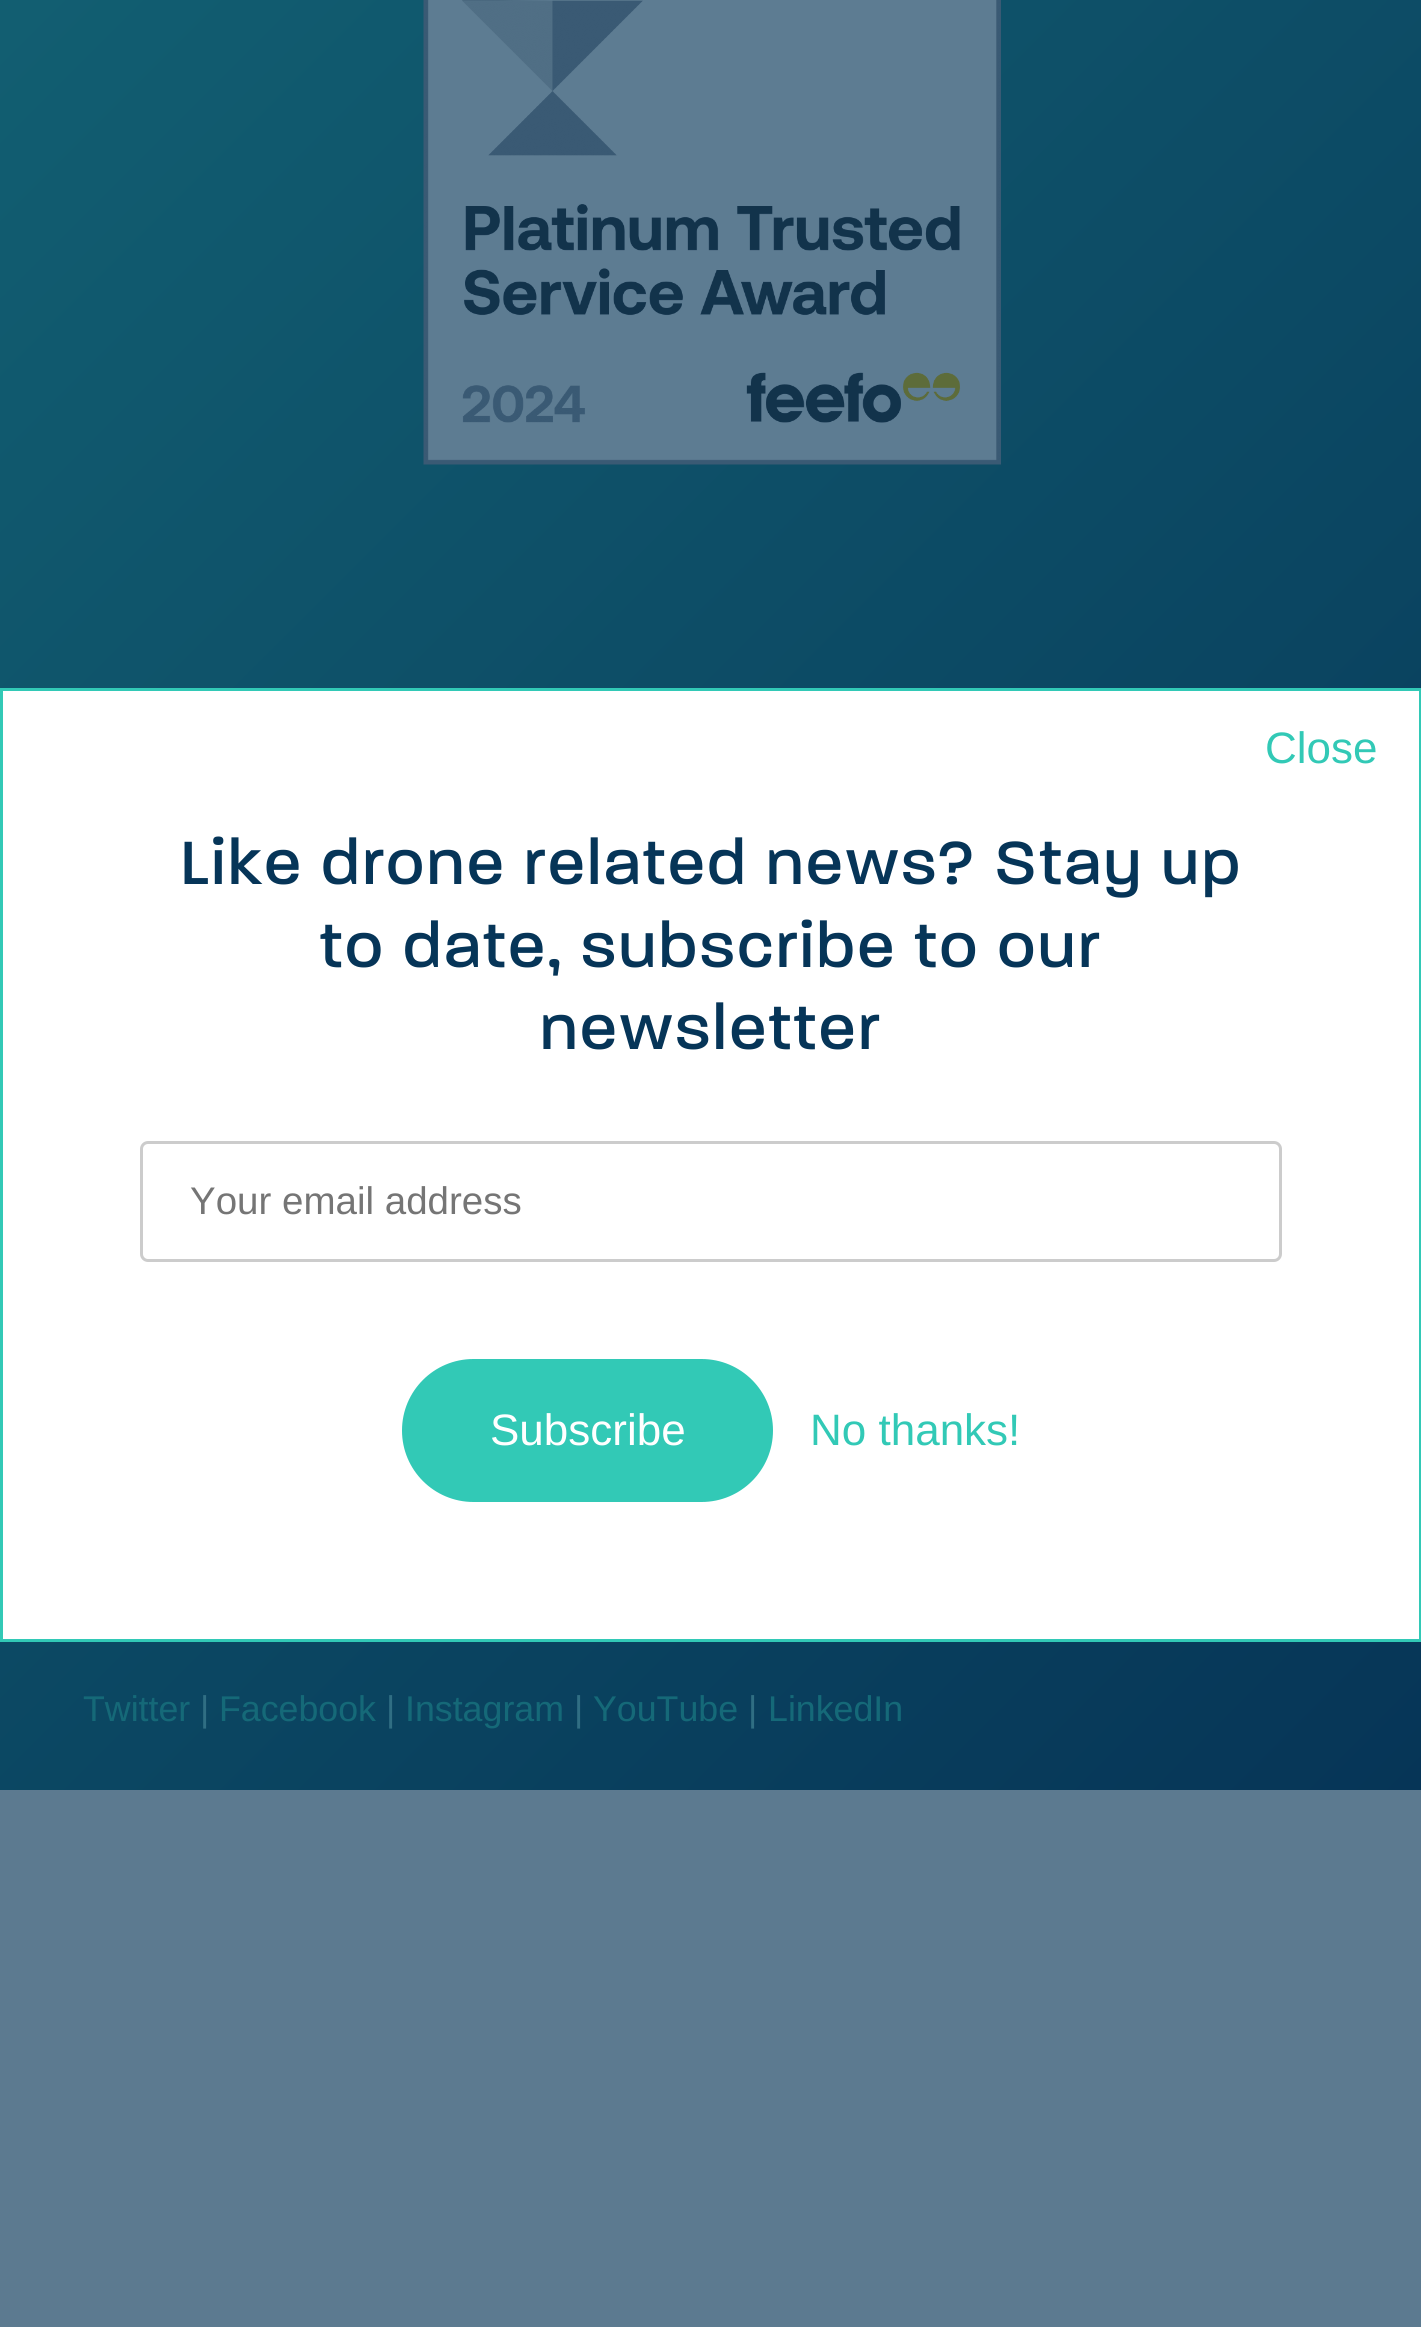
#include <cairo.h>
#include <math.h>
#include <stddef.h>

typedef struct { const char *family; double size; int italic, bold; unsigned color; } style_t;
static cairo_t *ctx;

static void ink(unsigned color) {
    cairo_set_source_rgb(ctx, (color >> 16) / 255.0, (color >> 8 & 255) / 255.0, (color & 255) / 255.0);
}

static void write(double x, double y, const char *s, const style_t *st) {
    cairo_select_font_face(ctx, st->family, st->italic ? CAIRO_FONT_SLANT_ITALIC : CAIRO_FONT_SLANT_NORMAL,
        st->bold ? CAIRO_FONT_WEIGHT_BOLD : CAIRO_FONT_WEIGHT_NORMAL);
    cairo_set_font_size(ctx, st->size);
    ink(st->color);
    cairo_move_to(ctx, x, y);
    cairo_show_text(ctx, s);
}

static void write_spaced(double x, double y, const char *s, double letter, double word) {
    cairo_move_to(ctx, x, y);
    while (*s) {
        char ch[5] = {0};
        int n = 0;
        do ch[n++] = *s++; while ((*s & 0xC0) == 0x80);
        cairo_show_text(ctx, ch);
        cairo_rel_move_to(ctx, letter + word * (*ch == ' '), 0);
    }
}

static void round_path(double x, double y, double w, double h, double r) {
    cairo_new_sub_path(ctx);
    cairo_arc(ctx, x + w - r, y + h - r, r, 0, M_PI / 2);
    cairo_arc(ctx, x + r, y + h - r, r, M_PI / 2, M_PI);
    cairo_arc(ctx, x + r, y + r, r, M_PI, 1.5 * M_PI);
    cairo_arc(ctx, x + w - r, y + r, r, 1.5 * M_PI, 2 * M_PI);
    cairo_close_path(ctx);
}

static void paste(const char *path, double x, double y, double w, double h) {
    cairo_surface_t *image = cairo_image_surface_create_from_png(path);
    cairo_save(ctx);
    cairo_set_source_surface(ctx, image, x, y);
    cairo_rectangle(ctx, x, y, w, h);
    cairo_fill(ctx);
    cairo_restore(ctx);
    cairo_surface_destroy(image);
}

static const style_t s1 = {"Liberation Sans", 44, 0, 0, 0x32c9b6};
static const style_t s2 = {"Liberation Sans", 38.5, 0, 0, 0x757575};
static const style_t s3 = {"Liberation Sans", 44, 0, 0, 0xffffff};
static const style_t s4 = {"Liberation Sans", 35.75, 0, 0, 0x156978};
static const style_t s5 = {"Liberation Sans", 35.75, 0, 0, 0x306e83};

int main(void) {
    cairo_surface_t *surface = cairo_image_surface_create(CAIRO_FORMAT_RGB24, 1421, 2327);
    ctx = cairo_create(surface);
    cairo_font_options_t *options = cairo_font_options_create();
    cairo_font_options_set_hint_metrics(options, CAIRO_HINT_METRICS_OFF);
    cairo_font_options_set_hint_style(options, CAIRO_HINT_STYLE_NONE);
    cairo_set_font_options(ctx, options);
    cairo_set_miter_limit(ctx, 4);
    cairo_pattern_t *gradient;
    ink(0x5c7a90);
    cairo_paint(ctx);
    gradient = cairo_pattern_create_linear(-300, -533, 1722, 1490);
    cairo_pattern_add_color_stop_rgba(gradient, 0, 0.082, 0.412, 0.471, 1);
    cairo_pattern_add_color_stop_rgba(gradient, 1, 0.024, 0.208, 0.341, 1);
    cairo_set_source(ctx, gradient);
    cairo_pattern_destroy(gradient);
    cairo_rectangle(ctx, 0, 0, 1421, 1790);
    cairo_fill(ctx);
    ink(0xffffff);
    cairo_rectangle(ctx, 1.5, 689.5, 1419, 951);
    cairo_fill_preserve(ctx);
    ink(0x32c9b6);
    cairo_set_line_width(ctx, 3);
    cairo_stroke(ctx);
    write(1265, 763, "Close", &s1);
    cairo_select_font_face(ctx, "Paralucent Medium", CAIRO_FONT_SLANT_NORMAL, CAIRO_FONT_WEIGHT_NORMAL);
    cairo_set_font_size(ctx, 66);
    ink(0x063558);
    write_spaced(180, 884, "Like drone related news? Stay up", 2.75, 0);
    write_spaced(320, 967, "to date, subscribe to our", 2.75, 0);
    write_spaced(540, 1049, "newsletter", 2.75, 0);
    round_path(141.5, 1142.5, 1139, 118, 6.5);
    ink(0xcccccc);
    cairo_stroke(ctx);
    write(190, 1214, "Your email address", &s2);
    ink(0x32c9b6);
    round_path(405, 1362, 365, 137, 68.5);
    cairo_fill_preserve(ctx);
    cairo_set_line_width(ctx, 6);
    cairo_stroke(ctx);
    write(490, 1445, "Subscribe", &s3);
    write(810, 1445, "No thanks!", &s1);
    paste("pic1.png", 423, 0, 578, 465);
    write(83, 1721, "Twitter", &s4);
    write(200, 1721, "|", &s5);
    write(219, 1721, "Facebook", &s4);
    write(386, 1721, "|", &s5);
    write(405, 1721, "Instagram", &s4);
    write(574, 1721, "|", &s5);
    write(593, 1721, "YouTube", &s4);
    write(748, 1721, "|", &s5);
    write(768, 1721, "LinkedIn", &s4);
    cairo_surface_write_to_png(surface, "screenshot.png");
    cairo_font_options_destroy(options);
    cairo_destroy(ctx);
    cairo_surface_destroy(surface);
    return 0;
}
